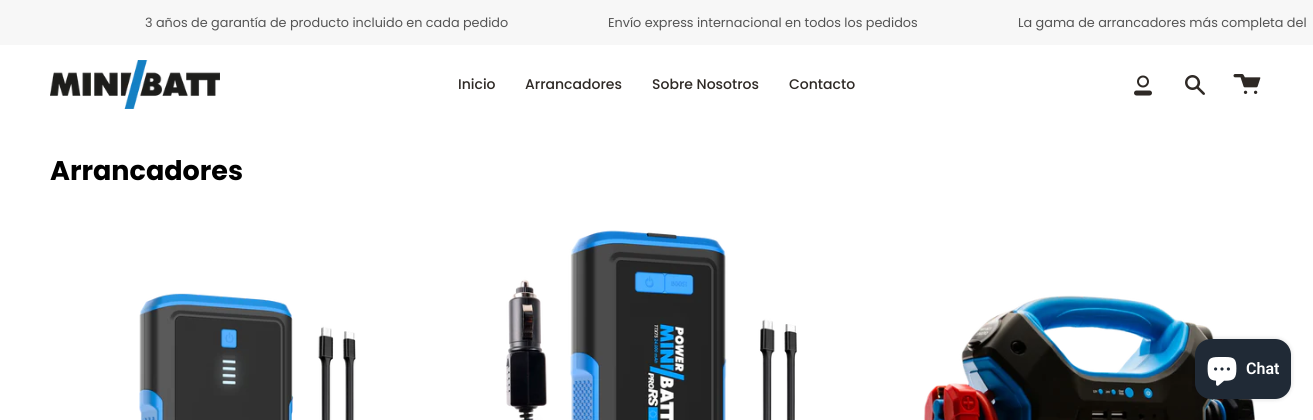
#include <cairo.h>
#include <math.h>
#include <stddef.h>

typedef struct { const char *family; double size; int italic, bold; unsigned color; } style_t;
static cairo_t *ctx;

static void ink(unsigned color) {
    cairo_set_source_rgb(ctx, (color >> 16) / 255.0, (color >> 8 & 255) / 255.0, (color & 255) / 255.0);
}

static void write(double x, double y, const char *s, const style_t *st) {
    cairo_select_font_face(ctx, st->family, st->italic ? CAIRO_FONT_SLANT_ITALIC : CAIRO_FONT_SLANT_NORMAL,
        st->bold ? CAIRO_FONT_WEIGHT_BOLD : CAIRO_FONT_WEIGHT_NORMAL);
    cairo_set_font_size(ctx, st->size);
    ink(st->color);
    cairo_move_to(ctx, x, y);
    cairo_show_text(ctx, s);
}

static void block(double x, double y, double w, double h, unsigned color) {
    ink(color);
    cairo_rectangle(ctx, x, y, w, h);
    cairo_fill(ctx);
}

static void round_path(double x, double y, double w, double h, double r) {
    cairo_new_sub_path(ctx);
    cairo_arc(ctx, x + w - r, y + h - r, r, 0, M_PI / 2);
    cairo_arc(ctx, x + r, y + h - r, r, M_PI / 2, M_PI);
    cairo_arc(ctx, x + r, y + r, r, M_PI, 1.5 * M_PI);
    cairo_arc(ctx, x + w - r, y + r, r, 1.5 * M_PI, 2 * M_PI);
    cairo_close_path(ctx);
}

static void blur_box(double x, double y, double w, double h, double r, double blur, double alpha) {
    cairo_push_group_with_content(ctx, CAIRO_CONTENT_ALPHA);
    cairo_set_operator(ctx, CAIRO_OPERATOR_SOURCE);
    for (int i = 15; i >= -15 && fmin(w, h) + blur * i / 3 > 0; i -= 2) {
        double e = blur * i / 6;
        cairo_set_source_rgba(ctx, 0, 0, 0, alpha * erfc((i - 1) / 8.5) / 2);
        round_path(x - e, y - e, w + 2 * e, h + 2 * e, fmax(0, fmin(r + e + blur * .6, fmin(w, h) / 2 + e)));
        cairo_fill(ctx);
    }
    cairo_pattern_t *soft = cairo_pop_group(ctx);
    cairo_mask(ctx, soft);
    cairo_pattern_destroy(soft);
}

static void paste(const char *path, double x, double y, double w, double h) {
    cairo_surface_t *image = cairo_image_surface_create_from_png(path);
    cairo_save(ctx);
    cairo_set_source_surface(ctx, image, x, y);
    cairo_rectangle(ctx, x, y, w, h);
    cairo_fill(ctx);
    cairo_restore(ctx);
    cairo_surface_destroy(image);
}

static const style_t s1 = {"Poppins", 12.8, 0, 0, 0x545454};
static const style_t s2 = {"Poppins Medium", 14, 0, 0, 0x2e2925};
static const style_t s3 = {"Poppins", 27, 0, 1, 0x000000};
static const style_t s4 = {"Roboto SemiBold", 16, 0, 0, 0xffffff};

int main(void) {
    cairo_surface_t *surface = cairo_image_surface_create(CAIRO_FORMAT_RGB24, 1313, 420);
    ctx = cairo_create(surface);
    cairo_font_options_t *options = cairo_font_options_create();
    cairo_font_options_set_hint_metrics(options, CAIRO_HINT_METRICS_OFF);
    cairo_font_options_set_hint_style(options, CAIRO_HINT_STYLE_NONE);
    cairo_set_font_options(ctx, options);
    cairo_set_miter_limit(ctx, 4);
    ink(0xffffff);
    cairo_paint(ctx);
    block(0, 0, 1313, 45, 0xf7f7f7);
    write(145, 27, "3 años de garantía de producto incluido en cada pedido", &s1);
    write(608, 27, "Envío express internacional en todos los pedidos", &s1);
    write(1018, 27, "La gama de arrancadores más completa del", &s1);
    paste("pic1.png", 50, 60, 170, 49);
    write(458, 89, "Inicio", &s2);
    write(525, 89, "Arrancadores", &s2);
    write(652, 89, "Sobre Nosotros", &s2);
    write(789, 89, "Contacto", &s2);
    paste("pic2.png", 1134, 75, 18, 21);
    paste("pic3.png", 1185, 75, 20, 20);
    paste("pic4.png", 1233, 74, 28, 20);
    write(50, 180, "Arrancadores", &s3);
    paste("pic5.png", 139, 293, 217, 127);
    paste("pic6.png", 506, 230, 291, 190);
    paste("pic7.png", 923, 295, 332, 125);
    ink(0x000000);
    blur_box(1195, 339, 96, 60, 16, 2.5, 0.15);
    ink(0x202a36);
    round_path(1195, 339, 96, 60, 16);
    cairo_fill(ctx);
    paste("pic8.png", 1207, 357, 30, 29);
    write(1246, 374, "Chat", &s4);
    cairo_surface_write_to_png(surface, "screenshot.png");
    cairo_font_options_destroy(options);
    cairo_destroy(ctx);
    cairo_surface_destroy(surface);
    return 0;
}
